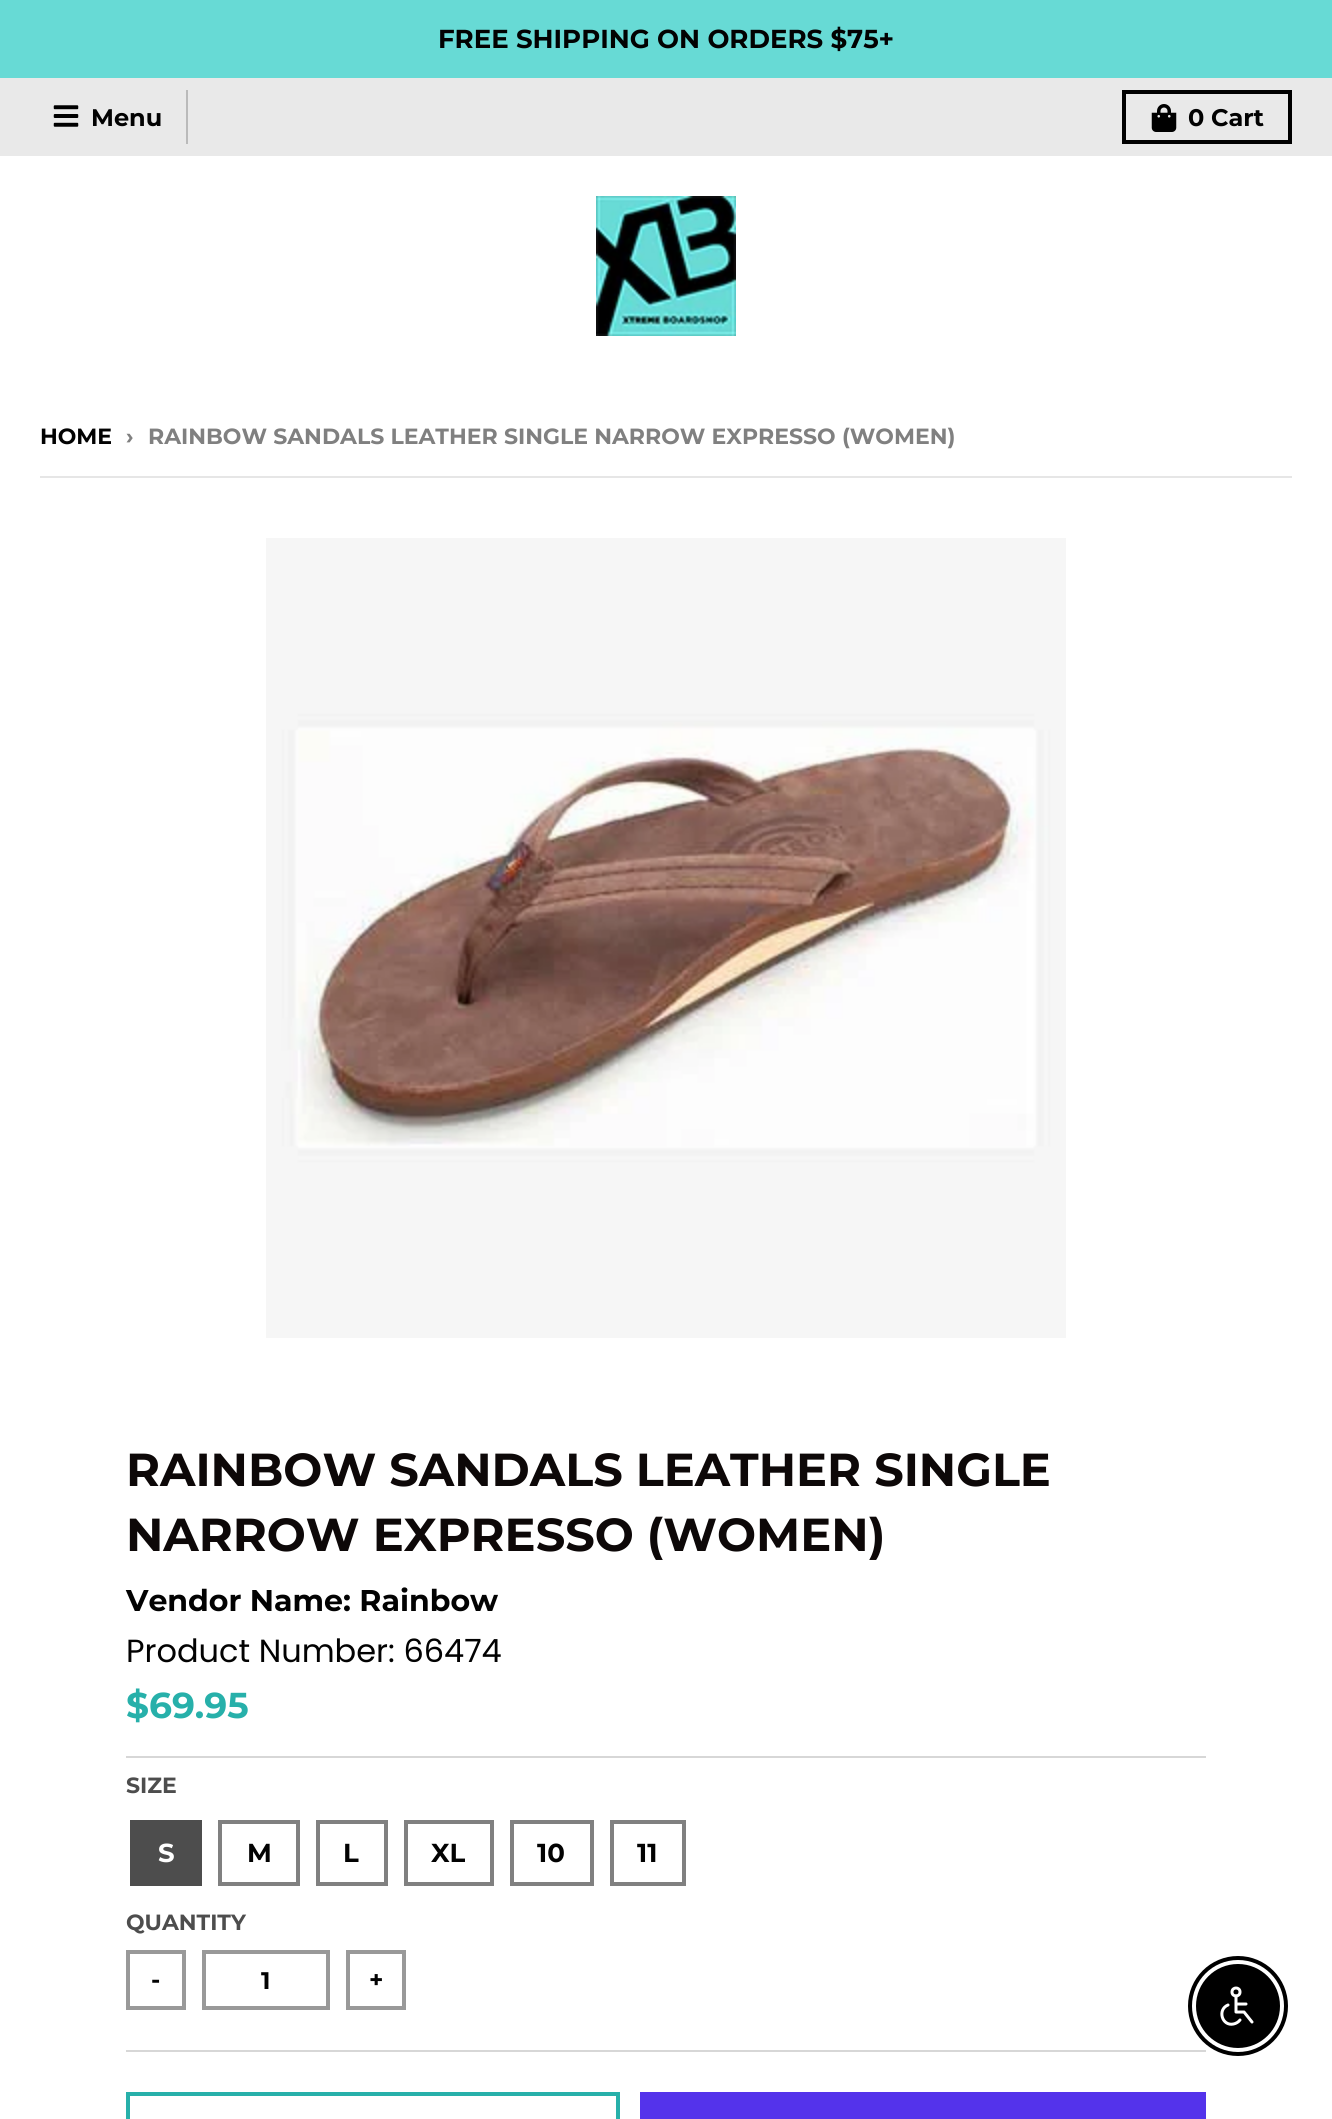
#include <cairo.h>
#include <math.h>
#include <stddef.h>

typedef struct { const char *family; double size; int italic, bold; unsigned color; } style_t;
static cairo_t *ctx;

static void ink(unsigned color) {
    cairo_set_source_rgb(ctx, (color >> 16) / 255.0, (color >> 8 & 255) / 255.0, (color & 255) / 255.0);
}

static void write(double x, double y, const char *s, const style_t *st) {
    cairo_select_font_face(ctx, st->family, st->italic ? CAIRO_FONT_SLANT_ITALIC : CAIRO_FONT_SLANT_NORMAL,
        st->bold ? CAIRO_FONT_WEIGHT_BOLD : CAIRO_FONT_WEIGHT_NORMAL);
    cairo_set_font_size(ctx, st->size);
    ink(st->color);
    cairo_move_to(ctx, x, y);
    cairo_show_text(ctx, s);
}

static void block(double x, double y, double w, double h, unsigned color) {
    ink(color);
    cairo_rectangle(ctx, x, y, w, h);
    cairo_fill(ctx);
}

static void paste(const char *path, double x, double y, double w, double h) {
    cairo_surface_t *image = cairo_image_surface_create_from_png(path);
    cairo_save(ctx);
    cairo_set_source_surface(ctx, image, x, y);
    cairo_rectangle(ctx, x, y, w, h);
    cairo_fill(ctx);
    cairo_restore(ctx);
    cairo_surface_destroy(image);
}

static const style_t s1 = {"Montserrat", 26, 0, 1, 0x020202};
static const style_t s2 = {"Montserrat", 24, 0, 1, 0x020202};
static const style_t s3 = {"Montserrat", 22, 0, 1, 0x020202};
static const style_t s4 = {"Montserrat", 22, 0, 1, 0x808080};
static const style_t s5 = {"Montserrat", 46.25, 0, 1, 0x0d0808};
static const style_t s6 = {"Montserrat", 30, 0, 1, 0x020202};
static const style_t s7 = {"Poppins", 32, 0, 0, 0x020202};
static const style_t s8 = {"Montserrat", 36, 0, 1, 0x27b0aa};
static const style_t s9 = {"Montserrat", 22, 0, 1, 0x4d4d4d};
static const style_t s10 = {"Montserrat", 26, 0, 1, 0xffffff};

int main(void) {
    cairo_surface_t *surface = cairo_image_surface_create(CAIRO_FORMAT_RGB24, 1332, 2119);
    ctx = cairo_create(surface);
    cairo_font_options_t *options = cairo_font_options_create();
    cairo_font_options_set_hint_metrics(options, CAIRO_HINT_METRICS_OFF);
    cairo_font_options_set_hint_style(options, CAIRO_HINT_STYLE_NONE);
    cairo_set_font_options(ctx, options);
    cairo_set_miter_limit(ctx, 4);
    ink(0xffffff);
    cairo_paint(ctx);
    block(0, 0, 1332, 78, 0x67dad5);
    write(438, 48, "FREE SHIPPING ON ORDERS $75+", &s1);
    block(0, 78, 1332, 78, 0xe9e9e9);
    block(186, 90, 2, 54, 0xbababa);
    paste("pic1.png", 53, 105, 26, 22);
    write(91, 126, "Menu", &s2);
    cairo_rectangle(ctx, 1124, 92, 166, 50);
    ink(0x000000);
    cairo_set_line_width(ctx, 4);
    cairo_stroke(ctx);
    paste("pic2.png", 1151, 104, 26, 28);
    write(1188, 126, "0 Cart", &s2);
    paste("pic3.png", 596, 196, 140, 140);
    write(40, 444, "HOME", &s3);
    write(126, 444, "›", &s4);
    write(148, 444, "RAINBOW SANDALS LEATHER SINGLE NARROW EXPRESSO (WOMEN)", &s4);
    block(40, 476, 1252, 2, 0xe6e6e6);
    paste("pic4.png", 266, 538, 800, 800);
    write(126, 1486, "RAINBOW SANDALS LEATHER SINGLE", &s5);
    write(126, 1551, "NARROW EXPRESSO (WOMEN)", &s5);
    write(126, 1611, "Vendor Name: Rainbow", &s6);
    write(126, 1662, "Product Number: 66474", &s7);
    block(126, 1756, 1080, 2, 0xd7d7d7);
    write(126, 1718, "$69.95", &s8);
    block(126, 2050, 1080, 2, 0xd7d7d7);
    write(126, 1793, "SIZE", &s9);
    block(130, 1820, 72, 66, 0x4d4d4d);
    write(158, 1862, "S", &s10);
    cairo_rectangle(ctx, 220, 1822, 78, 62);
    ink(0x808080);
    cairo_stroke(ctx);
    write(247, 1862, "M", &s1);
    cairo_rectangle(ctx, 318, 1822, 68, 62);
    ink(0x808080);
    cairo_stroke(ctx);
    write(343, 1862, "L", &s1);
    cairo_rectangle(ctx, 406, 1822, 86, 62);
    ink(0x808080);
    cairo_stroke(ctx);
    write(431, 1862, "XL", &s1);
    cairo_rectangle(ctx, 512, 1822, 80, 62);
    ink(0x808080);
    cairo_stroke(ctx);
    write(537, 1862, "10", &s1);
    cairo_rectangle(ctx, 612, 1822, 72, 62);
    ink(0x808080);
    cairo_stroke(ctx);
    write(637, 1862, "11", &s1);
    write(126, 1930, "QUANTITY", &s9);
    cairo_rectangle(ctx, 128, 1952, 56, 56);
    ink(0x999999);
    cairo_stroke(ctx);
    write(151, 1988, "-", &s2);
    cairo_rectangle(ctx, 204, 1952, 124, 56);
    ink(0x999999);
    cairo_stroke(ctx);
    write(261, 1989, "1", &s2);
    cairo_rectangle(ctx, 348, 1952, 56, 56);
    ink(0x999999);
    cairo_stroke(ctx);
    write(369, 1988, "+", &s2);
    cairo_rectangle(ctx, 128, 2094, 490, 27);
    ink(0x27b0aa);
    cairo_stroke(ctx);
    block(640, 2092, 566, 27, 0x5433eb);
    cairo_arc(ctx, 1238, 2006, 48, 0, 2 * M_PI);
    ink(0x000000);
    cairo_stroke(ctx);
    cairo_arc(ctx, 1238, 2006, 41, 0, 2 * M_PI);
    cairo_fill_preserve(ctx);
    cairo_set_line_width(ctx, 2);
    cairo_stroke(ctx);
    cairo_arc(ctx, 1236, 1992, 4, 0, 2 * M_PI);
    ink(0xffffff);
    cairo_set_line_width(ctx, 3);
    cairo_stroke(ctx);
    cairo_new_path(ctx);
    cairo_move_to(ctx, 1236, 1996);
    cairo_line_to(ctx, 1236, 2012);
    cairo_line_to(ctx, 1244, 2012);
    cairo_line_to(ctx, 1252, 2022);
    cairo_move_to(ctx, 1236, 2004);
    cairo_line_to(ctx, 1246, 2004);
    cairo_move_to(ctx, 1228, 2005);
    cairo_curve_to(ctx, 1217, 2009.5, 1222, 2026.5, 1233.5, 2024);
    cairo_curve_to(ctx, 1236, 2023.5, 1238.5, 2022, 1240, 2020);
    cairo_set_line_cap(ctx, CAIRO_LINE_CAP_ROUND);
    cairo_set_line_join(ctx, CAIRO_LINE_JOIN_ROUND);
    cairo_stroke(ctx);
    cairo_surface_write_to_png(surface, "screenshot.png");
    cairo_font_options_destroy(options);
    cairo_destroy(ctx);
    cairo_surface_destroy(surface);
    return 0;
}
